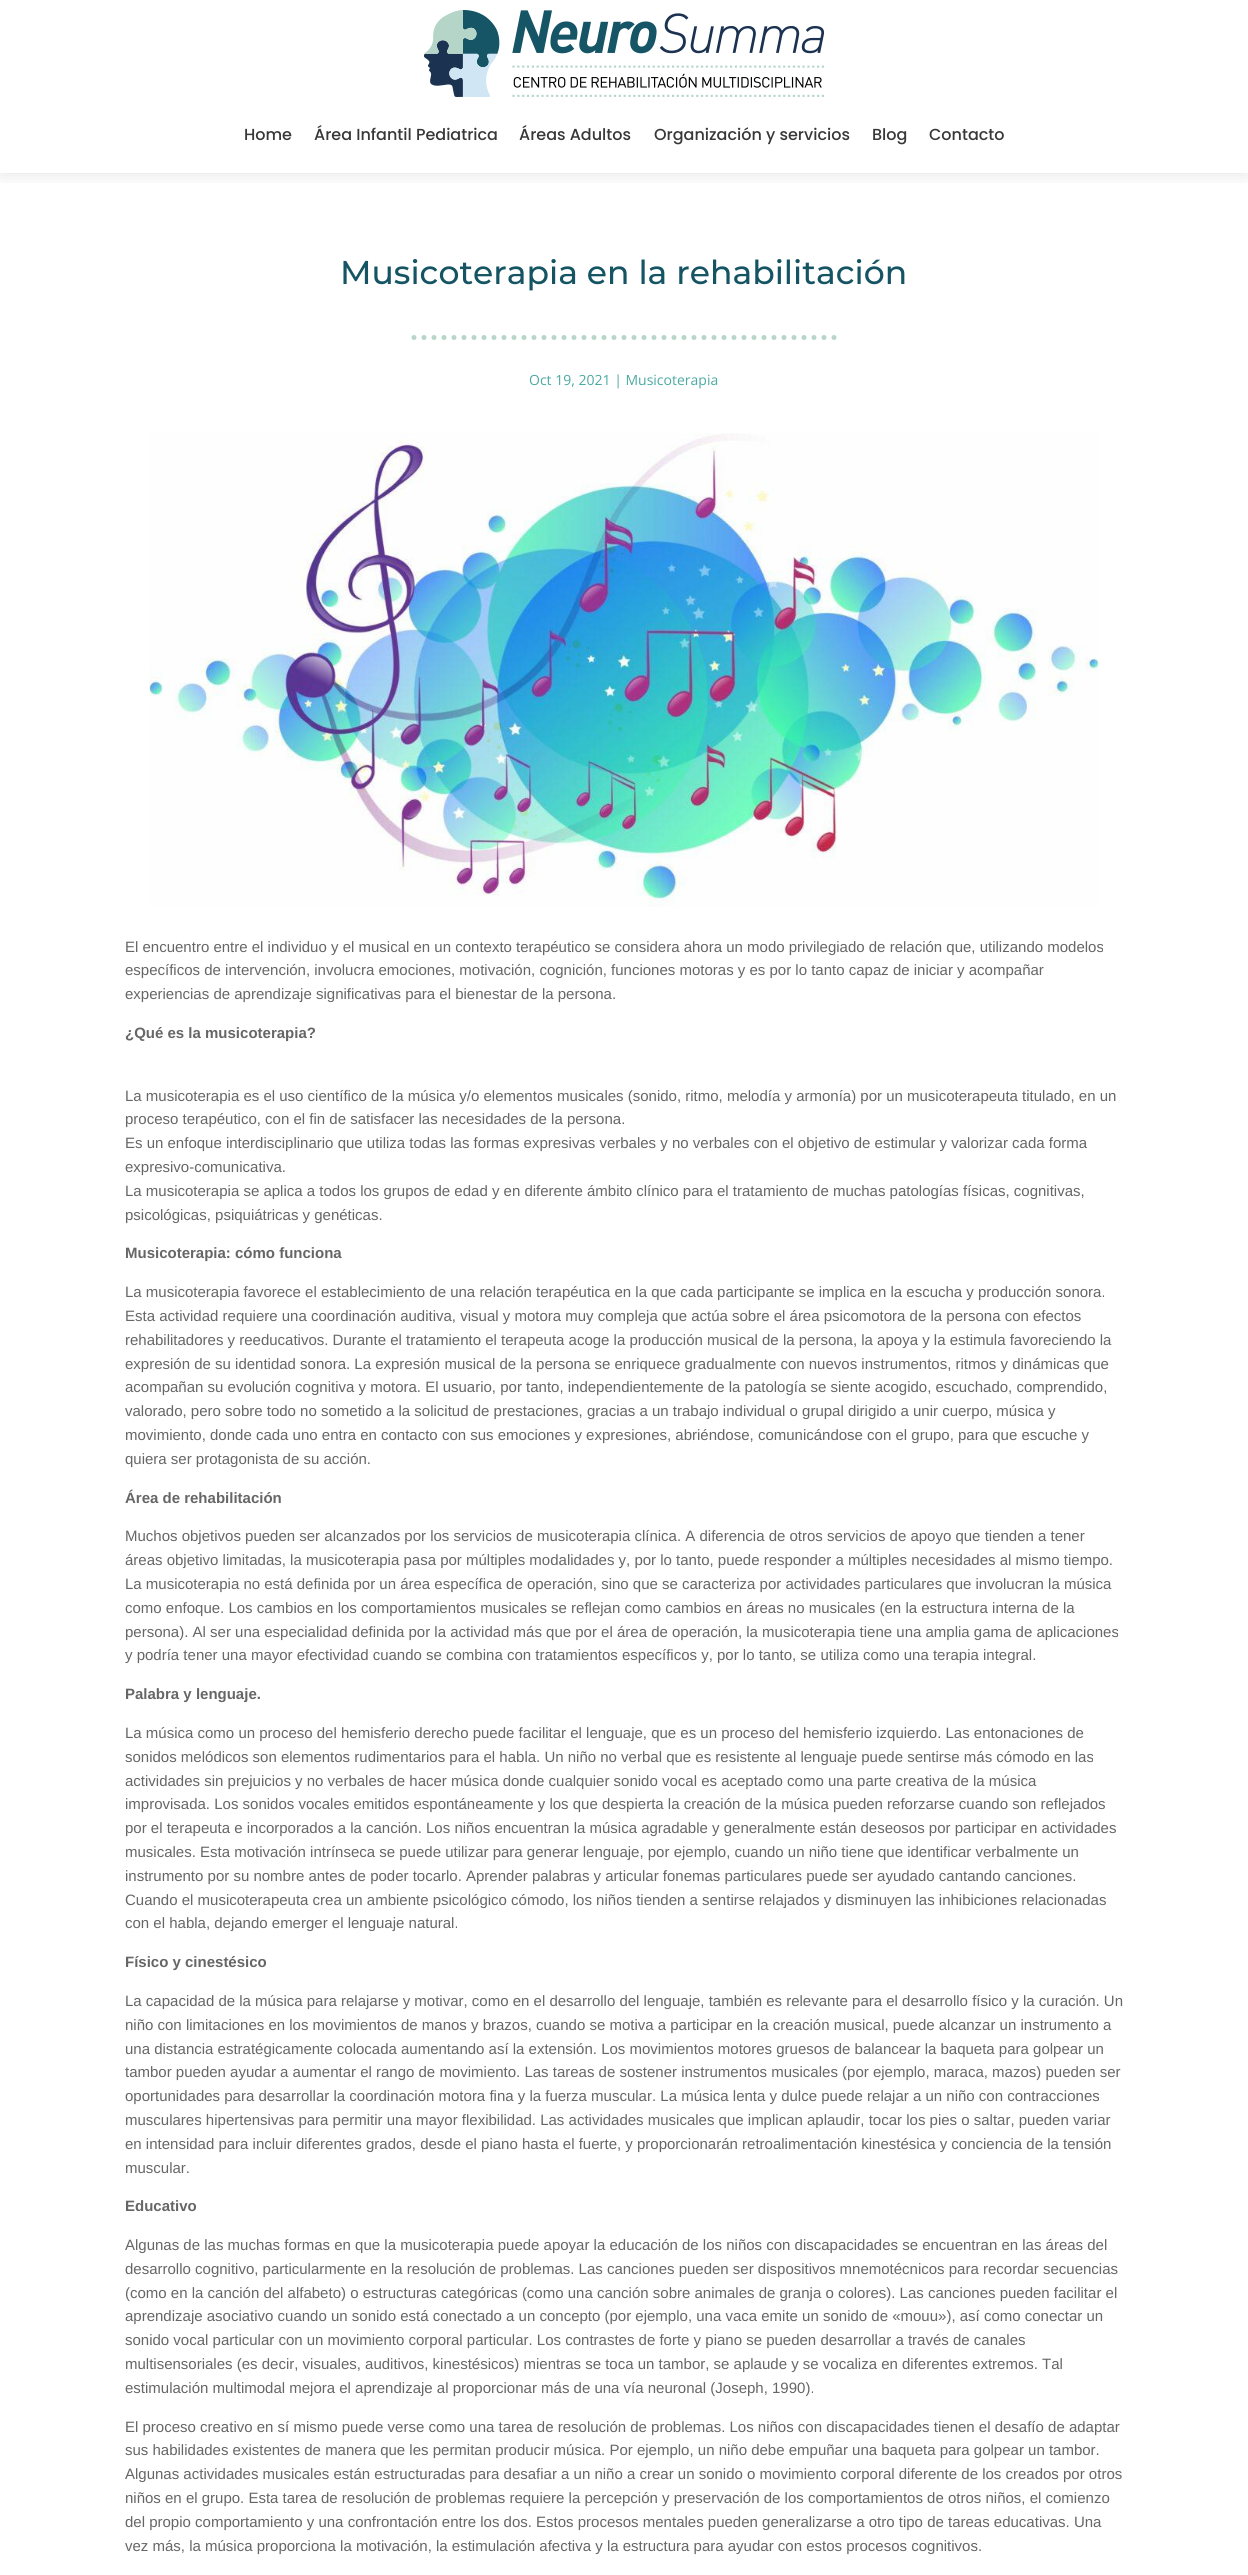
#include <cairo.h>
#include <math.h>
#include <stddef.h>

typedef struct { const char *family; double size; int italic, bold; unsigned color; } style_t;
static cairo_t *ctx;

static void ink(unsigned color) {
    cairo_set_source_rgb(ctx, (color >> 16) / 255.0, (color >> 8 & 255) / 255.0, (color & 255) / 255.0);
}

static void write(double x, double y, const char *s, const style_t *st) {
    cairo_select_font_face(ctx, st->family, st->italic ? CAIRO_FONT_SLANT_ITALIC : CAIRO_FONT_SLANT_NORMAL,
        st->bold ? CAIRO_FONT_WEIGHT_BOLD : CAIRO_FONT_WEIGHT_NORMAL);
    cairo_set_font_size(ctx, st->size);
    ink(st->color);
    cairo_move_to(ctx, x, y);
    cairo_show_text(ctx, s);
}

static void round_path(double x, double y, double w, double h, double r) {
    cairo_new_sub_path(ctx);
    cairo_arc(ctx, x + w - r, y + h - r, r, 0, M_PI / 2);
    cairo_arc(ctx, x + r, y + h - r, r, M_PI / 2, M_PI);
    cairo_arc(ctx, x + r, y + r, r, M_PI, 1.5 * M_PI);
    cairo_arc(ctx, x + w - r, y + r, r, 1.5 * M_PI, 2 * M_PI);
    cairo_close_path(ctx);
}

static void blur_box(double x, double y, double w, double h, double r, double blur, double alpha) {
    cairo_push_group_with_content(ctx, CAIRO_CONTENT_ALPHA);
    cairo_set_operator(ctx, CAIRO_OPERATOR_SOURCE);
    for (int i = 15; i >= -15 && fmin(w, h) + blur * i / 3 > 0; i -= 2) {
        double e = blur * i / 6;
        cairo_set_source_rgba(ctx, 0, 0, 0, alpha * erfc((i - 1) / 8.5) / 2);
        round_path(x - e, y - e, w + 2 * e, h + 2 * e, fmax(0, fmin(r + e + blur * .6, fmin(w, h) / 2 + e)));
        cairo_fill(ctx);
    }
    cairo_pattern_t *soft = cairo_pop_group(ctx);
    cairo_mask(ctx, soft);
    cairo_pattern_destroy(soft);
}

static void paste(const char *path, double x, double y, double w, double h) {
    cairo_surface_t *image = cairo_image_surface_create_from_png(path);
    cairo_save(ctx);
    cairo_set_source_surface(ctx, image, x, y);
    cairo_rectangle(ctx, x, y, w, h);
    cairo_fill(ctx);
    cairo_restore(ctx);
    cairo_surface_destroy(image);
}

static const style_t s1 = {"Poppins Medium", 16, 0, 0, 0x383838};
static const style_t s2 = {"Montserrat Medium", 33, 0, 0, 0x155463};
static const style_t s3 = {"Open Sans", 14, 0, 0, 0x4ca9a3};
static const style_t s4 = {"Liberation Sans", 15, 0, 0, 0x666666};
static const style_t s5 = {"Liberation Sans", 15, 0, 1, 0x666666};

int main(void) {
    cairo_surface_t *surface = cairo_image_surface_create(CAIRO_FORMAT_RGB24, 1248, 2575);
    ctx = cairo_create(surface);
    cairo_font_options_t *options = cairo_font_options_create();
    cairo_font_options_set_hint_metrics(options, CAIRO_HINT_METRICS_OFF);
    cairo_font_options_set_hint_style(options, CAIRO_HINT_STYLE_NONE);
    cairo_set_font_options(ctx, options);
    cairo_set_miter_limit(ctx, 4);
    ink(0xffffff);
    cairo_paint(ctx);
    cairo_save(ctx);
    cairo_rectangle(ctx, 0, 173, 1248, 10);
    cairo_clip(ctx);
    ink(0x000000);
    blur_box(0, 2, 1248, 173, 0, 9, 0.1);
    cairo_restore(ctx);
    paste("pic1.png", 424, 10, 400, 87);
    write(244, 140, "Home", &s1);
    write(314, 140, "Área Infantil Pediatrica", &s1);
    write(519, 140, "Áreas Adultos", &s1);
    write(654, 140, "Organización y servicios", &s1);
    write(872, 140, "Blog", &s1);
    write(929, 140, "Contacto", &s1);
    write(340, 284, "Musicoterapia en la rehabilitación", &s2);
    cairo_new_path(ctx);
    cairo_move_to(ctx, 414, 337.5);
    cairo_line_to(ctx, 834, 337.5);
    ink(0xb7d6c9);
    cairo_set_line_width(ctx, 5);
    cairo_set_line_cap(ctx, CAIRO_LINE_CAP_ROUND);
    cairo_set_dash(ctx, (double[]){0, 10}, 2, 0);
    cairo_stroke(ctx);
    write(529, 385, "Oct 19, 2021 | Musicoterapia", &s3);
    paste("pic2.png", 149, 433, 950, 474);
    write(125, 952, "El encuentro entre el individuo y el musical en un contexto terapéutico se considera ahora un modo privilegiado de relación que, utilizando modelos", &s4);
    write(125, 975, "específicos de intervención, involucra emociones, motivación, cognición, funciones motoras y es por lo tanto capaz de iniciar y acompañar", &s4);
    write(125, 999, "experiencias de aprendizaje significativas para el bienestar de la persona.", &s4);
    write(125, 1038, "¿Qué es la musicoterapia?", &s5);
    write(125, 1101, "La musicoterapia es el uso científico de la música y/o elementos musicales (sonido, ritmo, melodía y armonía) por un musicoterapeuta titulado, en un", &s4);
    write(125, 1124, "proceso terapéutico, con el fin de satisfacer las necesidades de la persona.", &s4);
    write(125, 1148, "Es un enfoque interdisciplinario que utiliza todas las formas expresivas verbales y no verbales con el objetivo de estimular y valorizar cada forma", &s4);
    write(125, 1172, "expresivo-comunicativa.", &s4);
    write(125, 1196, "La musicoterapia se aplica a todos los grupos de edad y en diferente ámbito clínico para el tratamiento de muchas patologías físicas, cognitivas,", &s4);
    write(125, 1220, "psicológicas, psiquiátricas y genéticas.", &s4);
    write(125, 1258, "Musicoterapia: cómo funciona", &s5);
    write(125, 1297, "La musicoterapia favorece el establecimiento de una relación terapéutica en la que cada participante se implica en la escucha y producción sonora.", &s4);
    write(125, 1321, "Esta actividad requiere una coordinación auditiva, visual y motora muy compleja que actúa sobre el área psicomotora de la persona con efectos", &s4);
    write(125, 1345, "rehabilitadores y reeducativos. Durante el tratamiento el terapeuta acoge la producción musical de la persona, la apoya y la estimula favoreciendo la", &s4);
    write(125, 1369, "expresión de su identidad sonora. La expresión musical de la persona se enriquece gradualmente con nuevos instrumentos, ritmos y dinámicas que", &s4);
    write(125, 1392, "acompañan su evolución cognitiva y motora. El usuario, por tanto, independientemente de la patología se siente acogido, escuchado, comprendido,", &s4);
    write(125, 1416, "valorado, pero sobre todo no sometido a la solicitud de prestaciones, gracias a un trabajo individual o grupal dirigido a unir cuerpo, música y", &s4);
    write(125, 1440, "movimiento, donde cada uno entra en contacto con sus emociones y expresiones, abriéndose, comunicándose con el grupo, para que escuche y", &s4);
    write(125, 1464, "quiera ser protagonista de su acción.", &s4);
    write(125, 1503, "Área de rehabilitación", &s5);
    write(125, 1541, "Muchos objetivos pueden ser alcanzados por los servicios de musicoterapia clínica. A diferencia de otros servicios de apoyo que tienden a tener", &s4);
    write(125, 1565, "áreas objetivo limitadas, la musicoterapia pasa por múltiples modalidades y, por lo tanto, puede responder a múltiples necesidades al mismo tiempo.", &s4);
    write(125, 1589, "La musicoterapia no está definida por un área específica de operación, sino que se caracteriza por actividades particulares que involucran la música", &s4);
    write(125, 1613, "como enfoque. Los cambios en los comportamientos musicales se reflejan como cambios en áreas no musicales (en la estructura interna de la", &s4);
    write(125, 1637, "persona). Al ser una especialidad definida por la actividad más que por el área de operación, la musicoterapia tiene una amplia gama de aplicaciones", &s4);
    write(125, 1660, "y podría tener una mayor efectividad cuando se combina con tratamientos específicos y, por lo tanto, se utiliza como una terapia integral.", &s4);
    write(125, 1699, "Palabra y lenguaje.", &s5);
    write(125, 1738, "La música como un proceso del hemisferio derecho puede facilitar el lenguaje, que es un proceso del hemisferio izquierdo. Las entonaciones de", &s4);
    write(125, 1762, "sonidos melódicos son elementos rudimentarios para el habla. Un niño no verbal que es resistente al lenguaje puede sentirse más cómodo en las", &s4);
    write(125, 1786, "actividades sin prejuicios y no verbales de hacer música donde cualquier sonido vocal es aceptado como una parte creativa de la música", &s4);
    write(125, 1809, "improvisada. Los sonidos vocales emitidos espontáneamente y los que despierta la creación de la música pueden reforzarse cuando son reflejados", &s4);
    write(125, 1833, "por el terapeuta e incorporados a la canción. Los niños encuentran la música agradable y generalmente están deseosos por participar en actividades", &s4);
    write(125, 1857, "musicales. Esta motivación intrínseca se puede utilizar para generar lenguaje, por ejemplo, cuando un niño tiene que identificar verbalmente un", &s4);
    write(125, 1881, "instrumento por su nombre antes de poder tocarlo. Aprender palabras y articular fonemas particulares puede ser ayudado cantando canciones.", &s4);
    write(125, 1905, "Cuando el musicoterapeuta crea un ambiente psicológico cómodo, los niños tienden a sentirse relajados y disminuyen las inhibiciones relacionadas", &s4);
    write(125, 1928, "con el habla, dejando emerger el lenguaje natural.", &s4);
    write(125, 1967, "Físico y cinestésico", &s5);
    write(125, 2006, "La capacidad de la música para relajarse y motivar, como en el desarrollo del lenguaje, también es relevante para el desarrollo físico y la curación. Un", &s4);
    write(125, 2030, "niño con limitaciones en los movimientos de manos y brazos, cuando se motiva a participar en la creación musical, puede alcanzar un instrumento a", &s4);
    write(125, 2054, "una distancia estratégicamente colocada aumentando así la extensión. Los movimientos motores gruesos de balancear la baqueta para golpear un", &s4);
    write(125, 2077, "tambor pueden ayudar a aumentar el rango de movimiento. Las tareas de sostener instrumentos musicales (por ejemplo, maraca, mazos) pueden ser", &s4);
    write(125, 2101, "oportunidades para desarrollar la coordinación motora fina y la fuerza muscular. La música lenta y dulce puede relajar a un niño con contracciones", &s4);
    write(125, 2125, "musculares hipertensivas para permitir una mayor flexibilidad. Las actividades musicales que implican aplaudir, tocar los pies o saltar, pueden variar", &s4);
    write(125, 2149, "en intensidad para incluir diferentes grados, desde el piano hasta el fuerte, y proporcionarán retroalimentación kinestésica y conciencia de la tensión", &s4);
    write(125, 2173, "muscular.", &s4);
    write(125, 2211, "Educativo", &s5);
    write(125, 2250, "Algunas de las muchas formas en que la musicoterapia puede apoyar la educación de los niños con discapacidades se encuentran en las áreas del", &s4);
    write(125, 2274, "desarrollo cognitivo, particularmente en la resolución de problemas. Las canciones pueden ser dispositivos mnemotécnicos para recordar secuencias", &s4);
    write(125, 2298, "(como en la canción del alfabeto) o estructuras categóricas (como una canción sobre animales de granja o colores). Las canciones pueden facilitar el", &s4);
    write(125, 2321, "aprendizaje asociativo cuando un sonido está conectado a un concepto (por ejemplo, una vaca emite un sonido de «mouu»), así como conectar un", &s4);
    write(125, 2345, "sonido vocal particular con un movimiento corporal particular. Los contrastes de forte y piano se pueden desarrollar a través de canales", &s4);
    write(125, 2369, "multisensoriales (es decir, visuales, auditivos, kinestésicos) mientras se toca un tambor, se aplaude y se vocaliza en diferentes extremos. Tal", &s4);
    write(125, 2393, "estimulación multimodal mejora el aprendizaje al proporcionar más de una vía neuronal (Joseph, 1990).", &s4);
    write(125, 2432, "El proceso creativo en sí mismo puede verse como una tarea de resolución de problemas. Los niños con discapacidades tienen el desafío de adaptar", &s4);
    write(125, 2455, "sus habilidades existentes de manera que les permitan producir música. Por ejemplo, un niño debe empuñar una baqueta para golpear un tambor.", &s4);
    write(125, 2479, "Algunas actividades musicales están estructuradas para desafiar a un niño a crear un sonido o movimiento corporal diferente de los creados por otros", &s4);
    write(125, 2503, "niños en el grupo. Esta tarea de resolución de problemas requiere la percepción y preservación de los comportamientos de otros niños, el comienzo", &s4);
    write(125, 2527, "del propio comportamiento y una confrontación entre los dos. Estos procesos mentales pueden generalizarse a otro tipo de tareas educativas. Una", &s4);
    write(125, 2551, "vez más, la música proporciona la motivación, la estimulación afectiva y la estructura para ayudar con estos procesos cognitivos.", &s4);
    cairo_surface_write_to_png(surface, "screenshot.png");
    cairo_font_options_destroy(options);
    cairo_destroy(ctx);
    cairo_surface_destroy(surface);
    return 0;
}
